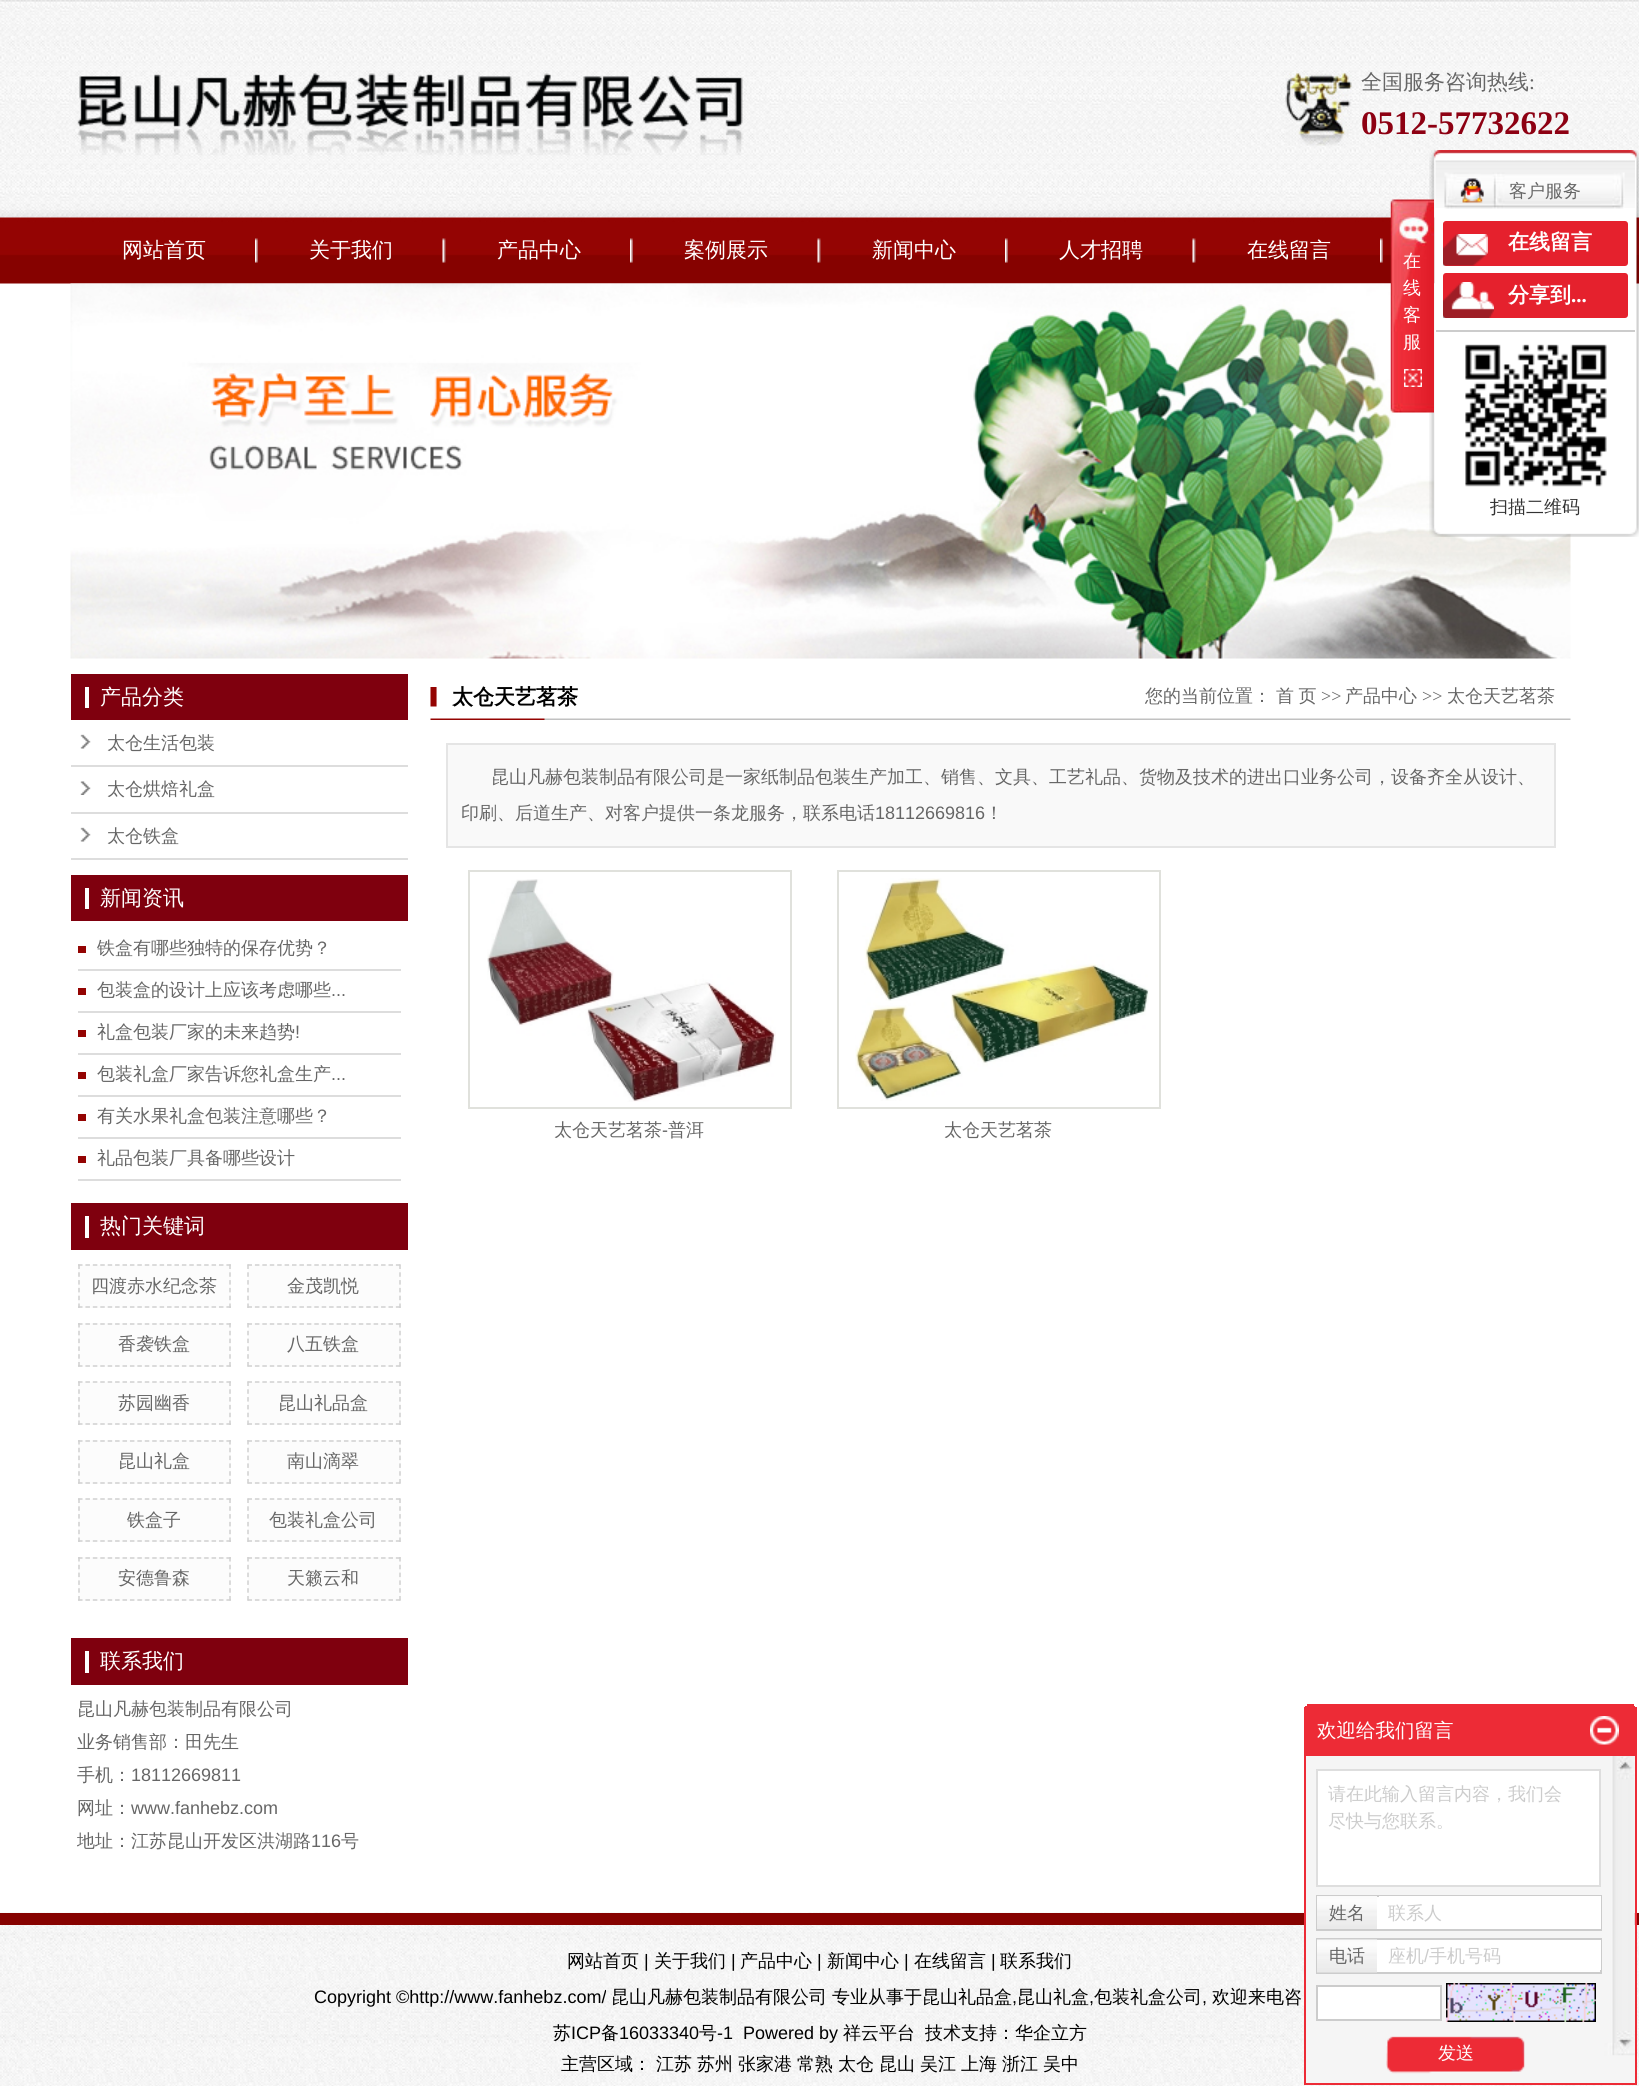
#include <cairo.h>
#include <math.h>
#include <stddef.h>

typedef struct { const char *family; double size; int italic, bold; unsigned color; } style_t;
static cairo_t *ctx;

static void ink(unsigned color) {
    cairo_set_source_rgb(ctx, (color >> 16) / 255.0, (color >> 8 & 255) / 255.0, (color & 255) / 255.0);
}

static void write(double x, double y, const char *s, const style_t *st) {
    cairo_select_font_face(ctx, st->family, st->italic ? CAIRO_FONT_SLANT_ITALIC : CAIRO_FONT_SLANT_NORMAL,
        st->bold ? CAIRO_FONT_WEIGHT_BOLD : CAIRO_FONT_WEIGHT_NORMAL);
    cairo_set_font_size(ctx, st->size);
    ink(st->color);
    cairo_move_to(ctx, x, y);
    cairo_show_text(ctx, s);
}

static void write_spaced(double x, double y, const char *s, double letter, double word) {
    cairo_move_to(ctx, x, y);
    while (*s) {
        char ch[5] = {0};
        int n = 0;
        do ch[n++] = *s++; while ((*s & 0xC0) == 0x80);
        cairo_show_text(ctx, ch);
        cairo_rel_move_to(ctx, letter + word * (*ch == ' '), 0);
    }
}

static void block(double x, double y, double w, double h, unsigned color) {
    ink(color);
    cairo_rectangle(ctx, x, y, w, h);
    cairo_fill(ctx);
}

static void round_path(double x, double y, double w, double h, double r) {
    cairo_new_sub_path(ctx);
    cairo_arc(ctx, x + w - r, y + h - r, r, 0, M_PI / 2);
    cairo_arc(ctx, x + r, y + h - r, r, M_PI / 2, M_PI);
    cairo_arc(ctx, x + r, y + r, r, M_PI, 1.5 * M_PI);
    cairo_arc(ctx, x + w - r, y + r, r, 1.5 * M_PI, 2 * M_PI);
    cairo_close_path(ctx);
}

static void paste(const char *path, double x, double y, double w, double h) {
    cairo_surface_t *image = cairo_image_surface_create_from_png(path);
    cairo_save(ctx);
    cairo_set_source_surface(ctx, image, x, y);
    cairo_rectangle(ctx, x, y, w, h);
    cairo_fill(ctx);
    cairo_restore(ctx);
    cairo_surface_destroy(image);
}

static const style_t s1 = {"WenQuanYi Zen Hei Medium", 21, 0, 0, 0x666666};
static const style_t s2 = {"Liberation Serif", 21, 0, 0, 0x666666};
static const style_t s3 = {"Liberation Serif", 33, 0, 1, 0x8d0012};
static const style_t s4 = {"WenQuanYi Zen Hei Medium", 21, 0, 0, 0xffffff};
static const style_t s5 = {"WenQuanYi Zen Hei Medium", 18, 0, 0, 0xffffff};
static const style_t s6 = {"WenQuanYi Zen Hei Medium", 18, 0, 0, 0x666666};
static const style_t s7 = {"WenQuanYi Zen Hei", 21, 0, 1, 0xffffff};
static const style_t s8 = {"Liberation Serif", 21, 0, 1, 0xffffff};
static const style_t s9 = {"WenQuanYi Zen Hei Medium", 18, 0, 0, 0x333333};
static const style_t s10 = {"Liberation Sans", 18, 0, 0, 0x666666};
static const style_t s11 = {"WenQuanYi Zen Hei", 21, 0, 1, 0x000000};
static const style_t s12 = {"Liberation Serif", 18, 0, 0, 0x666666};
static const style_t s13 = {"WenQuanYi Zen Hei Medium", 18, 0, 0, 0x000000};
static const style_t s14 = {"Liberation Sans", 18, 0, 0, 0x000000};
static const style_t s15 = {"WenQuanYi Zen Hei Medium", 19.5, 0, 0, 0xffffff};
static const style_t s16 = {"WenQuanYi Zen Hei Medium", 18, 0, 0, 0xcccccc};
static const style_t s17 = {"Liberation Sans", 18, 0, 0, 0xcccccc};

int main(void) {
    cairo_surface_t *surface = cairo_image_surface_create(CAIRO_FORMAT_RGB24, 1639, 2086);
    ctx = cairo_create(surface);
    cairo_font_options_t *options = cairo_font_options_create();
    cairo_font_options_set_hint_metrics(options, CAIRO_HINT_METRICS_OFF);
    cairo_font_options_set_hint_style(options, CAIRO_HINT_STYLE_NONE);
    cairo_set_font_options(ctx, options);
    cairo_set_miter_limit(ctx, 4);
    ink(0xffffff);
    cairo_paint(ctx);
    paste("pic1.png", 0, 0, 1639, 284);
    paste("pic2.png", 77, 73, 666, 82);
    paste("pic3.png", 1285, 73, 67, 73);
    write(1361, 89, "全国服务咨询热线", &s1);
    write(1529, 89, ":", &s2);
    write(1361, 134, "0512-57732622", &s3);
    paste("pic4.png", 255, 238, 3, 25);
    write(122, 257, "网站首页", &s4);
    paste("pic5.png", 442, 238, 4, 25);
    write(309, 257, "关于我们", &s4);
    paste("pic4.png", 630, 238, 3, 25);
    write(497, 257, "产品中心", &s4);
    paste("pic5.png", 817, 238, 4, 25);
    write(684, 257, "案例展示", &s4);
    paste("pic4.png", 1005, 238, 3, 25);
    write(872, 257, "新闻中心", &s4);
    paste("pic5.png", 1192, 238, 4, 25);
    write(1059, 257, "人才招聘", &s4);
    paste("pic4.png", 1380, 238, 3, 25);
    write(1247, 257, "在线留言", &s4);
    paste("pic8.png", 1429, 150, 210, 11);
    paste("pic17.png", 70, 283, 1501, 376);
    paste("pic9.png", 1429, 160, 210, 365);
    paste("pic6.png", 1390, 199, 44, 214);
    write(1403, 267, "在", &s5);
    write(1403, 294, "线", &s5);
    write(1403, 321, "客", &s5);
    write(1403, 348, "服", &s5);
    paste("pic7.png", 1404, 369, 18, 18);
    paste("pic10.png", 1435, 160, 200, 48);
    paste("pic11.png", 1444, 172, 181, 37);
    paste("pic12.png", 1460, 178, 24, 25);
    write(1509, 197, "客户服务", &s6);
    ink(0xe5212d);
    round_path(1443, 221, 185, 45, 3);
    cairo_fill(ctx);
    paste("pic13.png", 1443, 234, 45, 32);
    write(1508, 249, "在线留言", &s7);
    ink(0xe5212d);
    round_path(1443, 273, 185, 45, 3);
    cairo_fill(ctx);
    paste("pic14.png", 1443, 282, 51, 36);
    write(1508, 302, "分享到", &s7);
    write(1571, 302, "...", &s8);
    block(1436, 330, 199, 2, 0xcccccc);
    paste("pic15.png", 1465, 344, 142, 143);
    write(1490, 513, "扫描二维码", &s9);
    paste("pic16.png", 1429, 525, 210, 12);
    block(71, 674, 337, 46, 0x7f000e);
    block(85, 687, 4, 21, 0xffffff);
    write(100, 704, "产品分类", &s4);
    paste("pic18.png", 80, 734, 11, 15);
    block(71, 765, 337, 2, 0xdddddd);
    write(107, 749, "太仓生活包装", &s6);
    paste("pic19.png", 80, 781, 11, 14);
    block(71, 812, 337, 2, 0xdddddd);
    write(107, 795, "太仓烘焙礼盒", &s6);
    paste("pic18.png", 80, 827, 11, 15);
    block(71, 858, 337, 2, 0xdddddd);
    write(107, 842, "太仓铁盒", &s6);
    block(71, 875, 337, 46, 0x7f000e);
    block(85, 888, 4, 21, 0xffffff);
    write(100, 905, "新闻资讯", &s4);
    block(78, 946, 8, 7, 0x940402);
    block(78, 969, 323, 2, 0xdddddd);
    write(97, 954, "铁盒有哪些独特的保存优势？", &s6);
    block(78, 988, 8, 7, 0x940402);
    block(78, 1011, 323, 2, 0xdddddd);
    write(97, 996, "包装盒的设计上应该考虑哪些", &s6);
    write(331, 996, "...", &s10);
    block(78, 1030, 8, 7, 0x940402);
    block(78, 1053, 323, 2, 0xdddddd);
    write(97, 1038, "礼盒包装厂家的未来趋势", &s6);
    write(295, 1038, "!", &s10);
    block(78, 1072, 8, 7, 0x940402);
    block(78, 1095, 323, 2, 0xdddddd);
    write(97, 1080, "包装礼盒厂家告诉您礼盒生产", &s6);
    write(331, 1080, "...", &s10);
    block(78, 1114, 8, 7, 0x940402);
    block(78, 1137, 323, 2, 0xdddddd);
    write(97, 1122, "有关水果礼盒包装注意哪些？", &s6);
    block(78, 1156, 8, 7, 0x940402);
    block(78, 1179, 323, 2, 0xdddddd);
    write(97, 1164, "礼品包装厂具备哪些设计", &s6);
    block(71, 1203, 337, 47, 0x7f000e);
    block(85, 1216, 4, 22, 0xffffff);
    write(100, 1233, "热门关键词", &s4);
    block(78, 1265, 153, 43, 0xfcfcfc);
    cairo_new_path(ctx);
    cairo_move_to(ctx, 78, 1265);
    cairo_line_to(ctx, 231, 1265);
    ink(0xd0d0d0);
    cairo_set_line_width(ctx, 1.5);
    cairo_set_dash(ctx, (double[]){4.5, 2.92}, 2, 0);
    cairo_stroke(ctx);
    cairo_new_path(ctx);
    cairo_move_to(ctx, 230, 1264.5);
    cairo_line_to(ctx, 230, 1308);
    cairo_set_dash(ctx, (double[]){4.5, 3.3}, 2, 0);
    cairo_stroke(ctx);
    cairo_new_path(ctx);
    cairo_move_to(ctx, 78, 1307);
    cairo_line_to(ctx, 231, 1307);
    cairo_set_dash(ctx, (double[]){4.5, 2.92}, 2, 0);
    cairo_stroke(ctx);
    cairo_new_path(ctx);
    cairo_move_to(ctx, 79, 1264.5);
    cairo_line_to(ctx, 79, 1308);
    cairo_set_dash(ctx, (double[]){4.5, 3.3}, 2, 0);
    cairo_stroke(ctx);
    write(91, 1292, "四渡赤水纪念茶", &s6);
    block(248, 1265, 153, 43, 0xfcfcfc);
    cairo_new_path(ctx);
    cairo_move_to(ctx, 247.5, 1265);
    cairo_line_to(ctx, 400.5, 1265);
    ink(0xd0d0d0);
    cairo_set_dash(ctx, (double[]){4.5, 2.92}, 2, 0);
    cairo_stroke(ctx);
    cairo_new_path(ctx);
    cairo_move_to(ctx, 400, 1264.5);
    cairo_line_to(ctx, 400, 1308);
    cairo_set_dash(ctx, (double[]){4.5, 3.3}, 2, 0);
    cairo_stroke(ctx);
    cairo_new_path(ctx);
    cairo_move_to(ctx, 247.5, 1307);
    cairo_line_to(ctx, 400.5, 1307);
    cairo_set_dash(ctx, (double[]){4.5, 2.92}, 2, 0);
    cairo_stroke(ctx);
    cairo_new_path(ctx);
    cairo_move_to(ctx, 248, 1264.5);
    cairo_line_to(ctx, 248, 1308);
    cairo_set_dash(ctx, (double[]){4.5, 3.3}, 2, 0);
    cairo_stroke(ctx);
    write(287, 1292, "金茂凯悦", &s6);
    block(78, 1323, 153, 44, 0xfcfcfc);
    cairo_new_path(ctx);
    cairo_move_to(ctx, 78, 1324);
    cairo_line_to(ctx, 231, 1324);
    ink(0xd0d0d0);
    cairo_set_dash(ctx, (double[]){4.5, 2.92}, 2, 0);
    cairo_stroke(ctx);
    cairo_new_path(ctx);
    cairo_move_to(ctx, 230, 1323);
    cairo_line_to(ctx, 230, 1366.5);
    cairo_set_dash(ctx, (double[]){4.5, 3.3}, 2, 0);
    cairo_stroke(ctx);
    cairo_new_path(ctx);
    cairo_move_to(ctx, 78, 1366);
    cairo_line_to(ctx, 231, 1366);
    cairo_set_dash(ctx, (double[]){4.5, 2.92}, 2, 0);
    cairo_stroke(ctx);
    cairo_new_path(ctx);
    cairo_move_to(ctx, 79, 1323);
    cairo_line_to(ctx, 79, 1366.5);
    cairo_set_dash(ctx, (double[]){4.5, 3.3}, 2, 0);
    cairo_stroke(ctx);
    write(118, 1350, "香袭铁盒", &s6);
    block(248, 1323, 153, 44, 0xfcfcfc);
    cairo_new_path(ctx);
    cairo_move_to(ctx, 247.5, 1324);
    cairo_line_to(ctx, 400.5, 1324);
    ink(0xd0d0d0);
    cairo_set_dash(ctx, (double[]){4.5, 2.92}, 2, 0);
    cairo_stroke(ctx);
    cairo_new_path(ctx);
    cairo_move_to(ctx, 400, 1323);
    cairo_line_to(ctx, 400, 1366.5);
    cairo_set_dash(ctx, (double[]){4.5, 3.3}, 2, 0);
    cairo_stroke(ctx);
    cairo_new_path(ctx);
    cairo_move_to(ctx, 247.5, 1366);
    cairo_line_to(ctx, 400.5, 1366);
    cairo_set_dash(ctx, (double[]){4.5, 2.92}, 2, 0);
    cairo_stroke(ctx);
    cairo_new_path(ctx);
    cairo_move_to(ctx, 248, 1323);
    cairo_line_to(ctx, 248, 1366.5);
    cairo_set_dash(ctx, (double[]){4.5, 3.3}, 2, 0);
    cairo_stroke(ctx);
    write(287, 1350, "八五铁盒", &s6);
    block(78, 1382, 153, 43, 0xfcfcfc);
    cairo_new_path(ctx);
    cairo_move_to(ctx, 78, 1382);
    cairo_line_to(ctx, 231, 1382);
    ink(0xd0d0d0);
    cairo_set_dash(ctx, (double[]){4.5, 2.92}, 2, 0);
    cairo_stroke(ctx);
    cairo_new_path(ctx);
    cairo_move_to(ctx, 230, 1381.5);
    cairo_line_to(ctx, 230, 1425);
    cairo_set_dash(ctx, (double[]){4.5, 3.3}, 2, 0);
    cairo_stroke(ctx);
    cairo_new_path(ctx);
    cairo_move_to(ctx, 78, 1424);
    cairo_line_to(ctx, 231, 1424);
    cairo_set_dash(ctx, (double[]){4.5, 2.92}, 2, 0);
    cairo_stroke(ctx);
    cairo_new_path(ctx);
    cairo_move_to(ctx, 79, 1381.5);
    cairo_line_to(ctx, 79, 1425);
    cairo_set_dash(ctx, (double[]){4.5, 3.3}, 2, 0);
    cairo_stroke(ctx);
    write(118, 1409, "苏园幽香", &s6);
    block(248, 1382, 153, 43, 0xfcfcfc);
    cairo_new_path(ctx);
    cairo_move_to(ctx, 247.5, 1382);
    cairo_line_to(ctx, 400.5, 1382);
    ink(0xd0d0d0);
    cairo_set_dash(ctx, (double[]){4.5, 2.92}, 2, 0);
    cairo_stroke(ctx);
    cairo_new_path(ctx);
    cairo_move_to(ctx, 400, 1381.5);
    cairo_line_to(ctx, 400, 1425);
    cairo_set_dash(ctx, (double[]){4.5, 3.3}, 2, 0);
    cairo_stroke(ctx);
    cairo_new_path(ctx);
    cairo_move_to(ctx, 247.5, 1424);
    cairo_line_to(ctx, 400.5, 1424);
    cairo_set_dash(ctx, (double[]){4.5, 2.92}, 2, 0);
    cairo_stroke(ctx);
    cairo_new_path(ctx);
    cairo_move_to(ctx, 248, 1381.5);
    cairo_line_to(ctx, 248, 1425);
    cairo_set_dash(ctx, (double[]){4.5, 3.3}, 2, 0);
    cairo_stroke(ctx);
    write(278, 1409, "昆山礼品盒", &s6);
    block(78, 1440, 153, 44, 0xfcfcfc);
    cairo_new_path(ctx);
    cairo_move_to(ctx, 78, 1441);
    cairo_line_to(ctx, 231, 1441);
    ink(0xd0d0d0);
    cairo_set_dash(ctx, (double[]){4.5, 2.92}, 2, 0);
    cairo_stroke(ctx);
    cairo_new_path(ctx);
    cairo_move_to(ctx, 230, 1440);
    cairo_line_to(ctx, 230, 1483.5);
    cairo_set_dash(ctx, (double[]){4.5, 3.3}, 2, 0);
    cairo_stroke(ctx);
    cairo_new_path(ctx);
    cairo_move_to(ctx, 78, 1483);
    cairo_line_to(ctx, 231, 1483);
    cairo_set_dash(ctx, (double[]){4.5, 2.92}, 2, 0);
    cairo_stroke(ctx);
    cairo_new_path(ctx);
    cairo_move_to(ctx, 79, 1440);
    cairo_line_to(ctx, 79, 1483.5);
    cairo_set_dash(ctx, (double[]){4.5, 3.3}, 2, 0);
    cairo_stroke(ctx);
    write(118, 1467, "昆山礼盒", &s6);
    block(248, 1440, 153, 44, 0xfcfcfc);
    cairo_new_path(ctx);
    cairo_move_to(ctx, 247.5, 1441);
    cairo_line_to(ctx, 400.5, 1441);
    ink(0xd0d0d0);
    cairo_set_dash(ctx, (double[]){4.5, 2.92}, 2, 0);
    cairo_stroke(ctx);
    cairo_new_path(ctx);
    cairo_move_to(ctx, 400, 1440);
    cairo_line_to(ctx, 400, 1483.5);
    cairo_set_dash(ctx, (double[]){4.5, 3.3}, 2, 0);
    cairo_stroke(ctx);
    cairo_new_path(ctx);
    cairo_move_to(ctx, 247.5, 1483);
    cairo_line_to(ctx, 400.5, 1483);
    cairo_set_dash(ctx, (double[]){4.5, 2.92}, 2, 0);
    cairo_stroke(ctx);
    cairo_new_path(ctx);
    cairo_move_to(ctx, 248, 1440);
    cairo_line_to(ctx, 248, 1483.5);
    cairo_set_dash(ctx, (double[]){4.5, 3.3}, 2, 0);
    cairo_stroke(ctx);
    write(287, 1467, "南山滴翠", &s6);
    block(78, 1499, 153, 43, 0xfcfcfc);
    cairo_new_path(ctx);
    cairo_move_to(ctx, 78, 1499);
    cairo_line_to(ctx, 231, 1499);
    ink(0xd0d0d0);
    cairo_set_dash(ctx, (double[]){4.5, 2.92}, 2, 0);
    cairo_stroke(ctx);
    cairo_new_path(ctx);
    cairo_move_to(ctx, 230, 1498.5);
    cairo_line_to(ctx, 230, 1542);
    cairo_set_dash(ctx, (double[]){4.5, 3.3}, 2, 0);
    cairo_stroke(ctx);
    cairo_new_path(ctx);
    cairo_move_to(ctx, 78, 1541);
    cairo_line_to(ctx, 231, 1541);
    cairo_set_dash(ctx, (double[]){4.5, 2.92}, 2, 0);
    cairo_stroke(ctx);
    cairo_new_path(ctx);
    cairo_move_to(ctx, 79, 1498.5);
    cairo_line_to(ctx, 79, 1542);
    cairo_set_dash(ctx, (double[]){4.5, 3.3}, 2, 0);
    cairo_stroke(ctx);
    write(127, 1526, "铁盒子", &s6);
    block(248, 1499, 153, 43, 0xfcfcfc);
    cairo_new_path(ctx);
    cairo_move_to(ctx, 247.5, 1499);
    cairo_line_to(ctx, 400.5, 1499);
    ink(0xd0d0d0);
    cairo_set_dash(ctx, (double[]){4.5, 2.92}, 2, 0);
    cairo_stroke(ctx);
    cairo_new_path(ctx);
    cairo_move_to(ctx, 400, 1498.5);
    cairo_line_to(ctx, 400, 1542);
    cairo_set_dash(ctx, (double[]){4.5, 3.3}, 2, 0);
    cairo_stroke(ctx);
    cairo_new_path(ctx);
    cairo_move_to(ctx, 247.5, 1541);
    cairo_line_to(ctx, 400.5, 1541);
    cairo_set_dash(ctx, (double[]){4.5, 2.92}, 2, 0);
    cairo_stroke(ctx);
    cairo_new_path(ctx);
    cairo_move_to(ctx, 248, 1498.5);
    cairo_line_to(ctx, 248, 1542);
    cairo_set_dash(ctx, (double[]){4.5, 3.3}, 2, 0);
    cairo_stroke(ctx);
    write(269, 1526, "包装礼盒公司", &s6);
    block(78, 1557, 153, 44, 0xfcfcfc);
    cairo_new_path(ctx);
    cairo_move_to(ctx, 78, 1558);
    cairo_line_to(ctx, 231, 1558);
    ink(0xd0d0d0);
    cairo_set_dash(ctx, (double[]){4.5, 2.92}, 2, 0);
    cairo_stroke(ctx);
    cairo_new_path(ctx);
    cairo_move_to(ctx, 230, 1557);
    cairo_line_to(ctx, 230, 1600.5);
    cairo_set_dash(ctx, (double[]){4.5, 3.3}, 2, 0);
    cairo_stroke(ctx);
    cairo_new_path(ctx);
    cairo_move_to(ctx, 78, 1600);
    cairo_line_to(ctx, 231, 1600);
    cairo_set_dash(ctx, (double[]){4.5, 2.92}, 2, 0);
    cairo_stroke(ctx);
    cairo_new_path(ctx);
    cairo_move_to(ctx, 79, 1557);
    cairo_line_to(ctx, 79, 1600.5);
    cairo_set_dash(ctx, (double[]){4.5, 3.3}, 2, 0);
    cairo_stroke(ctx);
    write(118, 1584, "安德鲁森", &s6);
    block(248, 1557, 153, 44, 0xfcfcfc);
    cairo_new_path(ctx);
    cairo_move_to(ctx, 247.5, 1558);
    cairo_line_to(ctx, 400.5, 1558);
    ink(0xd0d0d0);
    cairo_set_dash(ctx, (double[]){4.5, 2.92}, 2, 0);
    cairo_stroke(ctx);
    cairo_new_path(ctx);
    cairo_move_to(ctx, 400, 1557);
    cairo_line_to(ctx, 400, 1600.5);
    cairo_set_dash(ctx, (double[]){4.5, 3.3}, 2, 0);
    cairo_stroke(ctx);
    cairo_new_path(ctx);
    cairo_move_to(ctx, 247.5, 1600);
    cairo_line_to(ctx, 400.5, 1600);
    cairo_set_dash(ctx, (double[]){4.5, 2.92}, 2, 0);
    cairo_stroke(ctx);
    cairo_new_path(ctx);
    cairo_move_to(ctx, 248, 1557);
    cairo_line_to(ctx, 248, 1600.5);
    cairo_set_dash(ctx, (double[]){4.5, 3.3}, 2, 0);
    cairo_stroke(ctx);
    write(287, 1584, "天籁云和", &s6);
    block(71, 1638, 337, 47, 0x7f000e);
    block(85, 1651, 4, 22, 0xffffff);
    write(100, 1668, "联系我们", &s4);
    write(77, 1715, "昆山凡赫包装制品有限公司", &s6);
    write(77, 1748, "业务销售部：田先生", &s6);
    write(77, 1781, "手机：", &s6);
    write(131, 1781, "18112669811", &s10);
    write(77, 1814, "网址：", &s6);
    write(131, 1814, "www.fanhebz.com", &s10);
    write(77, 1847, "地址：江苏昆山开发区洪湖路", &s6);
    write(311, 1847, "116", &s10);
    write(341, 1847, "号", &s6);
    paste("pic20.png", 430, 687, 1141, 33);
    write(452, 704, "太仓天艺茗茶", &s11);
    write(1145, 702, "您的当前位置：", &s6);
    write_spaced(1276, 702, "首 页", 0, -1);
    write(1321, 702, ">>", &s12);
    write(1345, 702, "产品中心", &s6);
    write(1422, 702, ">>", &s12);
    write(1447, 702, "太仓天艺茗茶", &s6);
    ink(0xf9f9f9);
    cairo_rectangle(ctx, 447, 744, 1108, 103);
    cairo_fill_preserve(ctx);
    ink(0xe5e5e5);
    cairo_set_line_width(ctx, 2);
    cairo_set_dash(ctx, NULL, 0, 0);
    cairo_stroke(ctx);
    write(491, 783, "昆山凡赫包装制品有限公司是一家纸制品包装生产加工、销售、文具、工艺礼品、货物及技术的进出口业务公司，设备齐全从设计、", &s6);
    write(461, 819, "印刷、后道生产、对客户提供一条龙服务，联系电话", &s6);
    write(875, 819, "18112669816", &s10);
    write(985, 819, "！", &s6);
    cairo_rectangle(ctx, 469, 871, 322, 237);
    ink(0xe0e1dc);
    cairo_stroke(ctx);
    paste("pic21.png", 487, 879, 289, 223);
    write(554, 1136, "太仓天艺茗茶", &s6);
    write(662, 1136, "-", &s10);
    write(668, 1136, "普洱", &s6);
    cairo_rectangle(ctx, 838, 871, 322, 237);
    ink(0xe0e1dc);
    cairo_stroke(ctx);
    paste("pic22.png", 855, 878, 294, 223);
    write(944, 1136, "太仓天艺茗茶", &s6);
    paste("pic23.png", 0, 1912, 1639, 174);
    block(0, 1913, 1639, 12, 0x860200);
    write(567, 1967, "网站首页", &s13);
    write(644, 1967, "|", &s14);
    write(654, 1967, "关于我们", &s13);
    write(731, 1967, "|", &s14);
    write(740, 1967, "产品中心", &s13);
    write(817, 1967, "|", &s14);
    write(827, 1967, "新闻中心", &s13);
    write(904, 1967, "|", &s14);
    write(914, 1967, "在线留言", &s13);
    write(991, 1967, "|", &s14);
    write(1000, 1967, "联系我们", &s13);
    write(314, 2003, "Copyright ©http://www.fanhebz.com/", &s14);
    write(611, 2003, "昆山凡赫包装制品有限公司", &s13);
    write(832, 2003, "专业从事于昆山礼品盒", &s13);
    write(1012, 2003, ",", &s14);
    write(1017, 2003, "昆山礼盒", &s13);
    write(1089, 2003, ",", &s14);
    write(1094, 2003, "包装礼盒公司", &s13);
    write(1202, 2003, ",", &s14);
    write(1212, 2003, "欢迎来电咨", &s13);
    write(553, 2039, "苏", &s13);
    write(571, 2039, "ICP", &s14);
    write(601, 2039, "备", &s13);
    write(619, 2039, "16033340", &s14);
    write(699, 2039, "号", &s13);
    write(717, 2039, "-1", &s14);
    write(743, 2039, "Powered by", &s14);
    write(843, 2039, "祥云平台", &s13);
    write(925, 2039, "技术支持：华企立方", &s13);
    write(561, 2070, "主营区域：", &s13);
    write(656, 2070, "江苏", &s13);
    write(697, 2070, "苏州", &s13);
    write(738, 2070, "张家港", &s13);
    write(797, 2070, "常熟", &s13);
    write(838, 2070, "太仓", &s13);
    write(879, 2070, "昆山", &s13);
    write(920, 2070, "吴江", &s13);
    write(961, 2070, "上海", &s13);
    write(1002, 2070, "浙江", &s13);
    write(1043, 2070, "吴中", &s13);
    block(1307, 1704, 327, 2, 0xed2b36);
    block(1305, 1706, 330, 1, 0xed2b36);
    block(1304, 1707, 333, 47, 0xed2b36);
    write(1317, 1737, "欢迎给我们留言", &s15);
    paste("pic24.png", 1590, 1716, 29, 29);
    paste("pic25.png", 1306, 1756, 329, 327);
    cairo_rectangle(ctx, 1305, 1755, 331, 329);
    ink(0xed2b36);
    cairo_stroke(ctx);
    ink(0xffffff);
    cairo_rectangle(ctx, 1317, 1770, 283, 116);
    cairo_fill_preserve(ctx);
    ink(0xdedede);
    cairo_stroke(ctx);
    write(1328, 1800, "请在此输入留言内容，我们会", &s16);
    write(1328, 1827, "尽快与您联系。", &s16);
    block(1377, 1897, 2, 32, 0xffffff);
    cairo_rectangle(ctx, 1317, 1896, 284, 34);
    ink(0xcccccc);
    cairo_stroke(ctx);
    paste("pic26.png", 1317, 1896, 60, 33);
    write(1329, 1919, "姓名", &s6);
    block(1379, 1896, 222, 33, 0xffffff);
    write(1388, 1919, "联系人", &s16);
    block(1377, 1940, 223, 32, 0xffffff);
    cairo_rectangle(ctx, 1317, 1939, 284, 34);
    ink(0xcccccc);
    cairo_stroke(ctx);
    paste("pic27.png", 1317, 1939, 60, 34);
    write(1329, 1962, "电话", &s6);
    write(1388, 1962, "座机", &s16);
    write(1424, 1962, "/", &s17);
    write(1429, 1962, "手机号码", &s16);
    block(1600, 1940, 1, 30, 0xffffff);
    cairo_rectangle(ctx, 1317, 1986, 124, 34);
    cairo_fill_preserve(ctx);
    ink(0xcccccc);
    cairo_stroke(ctx);
    paste("pic28.png", 1446, 1983, 150, 39);
    paste("pic29.png", 1386, 2036, 139, 38);
    write(1438, 2059, "发送", &s5);
    cairo_surface_write_to_png(surface, "screenshot.png");
    cairo_font_options_destroy(options);
    cairo_destroy(ctx);
    cairo_surface_destroy(surface);
    return 0;
}
